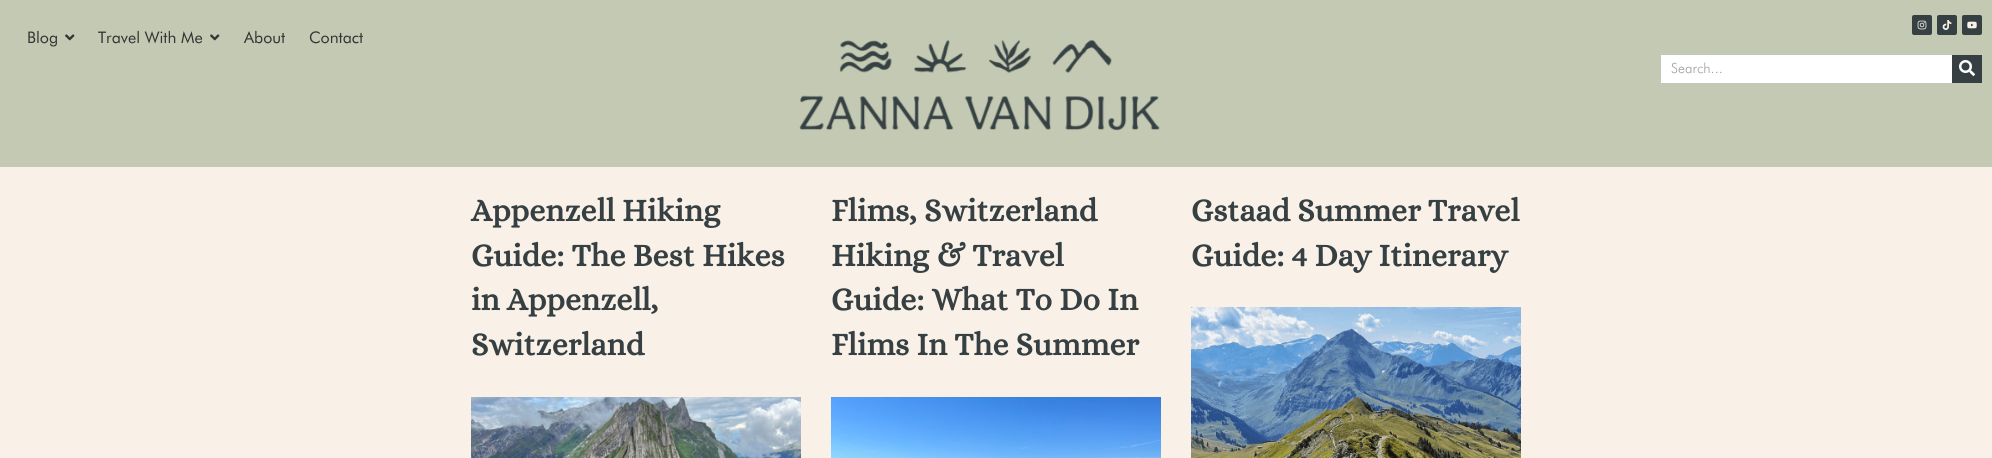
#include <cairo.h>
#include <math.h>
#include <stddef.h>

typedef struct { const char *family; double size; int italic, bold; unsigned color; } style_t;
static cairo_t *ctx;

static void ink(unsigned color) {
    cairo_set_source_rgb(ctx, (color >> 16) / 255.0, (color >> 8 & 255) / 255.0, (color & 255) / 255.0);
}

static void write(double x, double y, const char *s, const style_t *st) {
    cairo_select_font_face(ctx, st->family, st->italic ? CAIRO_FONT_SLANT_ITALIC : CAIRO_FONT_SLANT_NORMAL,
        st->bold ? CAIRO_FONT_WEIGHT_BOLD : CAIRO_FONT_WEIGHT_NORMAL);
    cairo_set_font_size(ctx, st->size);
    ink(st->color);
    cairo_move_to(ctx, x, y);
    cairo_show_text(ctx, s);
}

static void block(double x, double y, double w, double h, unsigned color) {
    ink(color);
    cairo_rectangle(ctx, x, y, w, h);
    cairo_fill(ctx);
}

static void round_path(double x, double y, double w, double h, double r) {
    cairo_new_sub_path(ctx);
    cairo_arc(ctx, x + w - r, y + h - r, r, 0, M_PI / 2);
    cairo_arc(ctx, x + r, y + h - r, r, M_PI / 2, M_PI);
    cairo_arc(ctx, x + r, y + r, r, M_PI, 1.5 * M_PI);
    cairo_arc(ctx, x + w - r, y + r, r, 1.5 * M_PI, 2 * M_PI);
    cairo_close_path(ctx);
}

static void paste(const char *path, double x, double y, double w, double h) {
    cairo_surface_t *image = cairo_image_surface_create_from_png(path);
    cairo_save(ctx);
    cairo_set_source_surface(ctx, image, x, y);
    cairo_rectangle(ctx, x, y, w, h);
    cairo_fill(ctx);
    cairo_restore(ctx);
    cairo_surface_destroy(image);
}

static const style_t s1 = {"Futura", 16, 0, 0, 0x333333};
static const style_t s2 = {"Futura Light", 14, 0, 0, 0x9ba0a1};
static const style_t s3 = {"Alice", 32, 0, 1, 0x364042};

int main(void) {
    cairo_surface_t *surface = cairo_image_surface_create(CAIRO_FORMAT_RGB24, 1992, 458);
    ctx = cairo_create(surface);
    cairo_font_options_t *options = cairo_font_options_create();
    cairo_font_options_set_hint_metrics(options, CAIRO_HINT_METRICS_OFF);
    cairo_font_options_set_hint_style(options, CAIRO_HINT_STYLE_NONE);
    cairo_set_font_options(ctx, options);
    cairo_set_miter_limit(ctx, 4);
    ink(0xf9f1e8);
    cairo_paint(ctx);
    block(0, 0, 1992, 167, 0xc4c9b3);
    write(27, 43, "Blog", &s1);
    paste("pic1.png", 65, 34, 10, 7);
    write(98, 43, "Travel With Me", &s1);
    paste("pic1.png", 210, 34, 10, 7);
    write(244, 43, "About", &s1);
    write(309, 43, "Contact", &s1);
    paste("pic2.png", 799, 39, 361, 92);
    ink(0x364042);
    round_path(1912, 15, 20, 20, 2);
    cairo_fill(ctx);
    paste("pic3.png", 1917, 20, 10, 10);
    round_path(1937, 15, 20, 20, 2);
    cairo_fill(ctx);
    paste("pic4.png", 1942, 20, 10, 10);
    round_path(1962, 15, 20, 20, 2);
    cairo_fill(ctx);
    paste("pic5.png", 1967, 21, 10, 8);
    block(1661, 55, 291, 28, 0xffffff);
    write(1671, 73, "Search...", &s2);
    block(1952, 55, 30, 28, 0x364042);
    paste("pic6.png", 1959, 60, 16, 16);
    write(471, 221, "Appenzell Hiking", &s3);
    write(471, 266, "Guide: The Best Hikes", &s3);
    write(471, 310, "in Appenzell,", &s3);
    write(471, 355, "Switzerland", &s3);
    paste("pic7.png", 471, 397, 330, 61);
    write(831, 221, "Flims, Switzerland", &s3);
    write(831, 266, "Hiking & Travel", &s3);
    write(831, 310, "Guide: What To Do In", &s3);
    write(831, 355, "Flims In The Summer", &s3);
    paste("pic8.png", 831, 397, 330, 61);
    write(1191, 221, "Gstaad Summer Travel", &s3);
    write(1191, 266, "Guide: 4 Day Itinerary", &s3);
    paste("pic9.png", 1191, 307, 330, 151);
    cairo_surface_write_to_png(surface, "screenshot.png");
    cairo_font_options_destroy(options);
    cairo_destroy(ctx);
    cairo_surface_destroy(surface);
    return 0;
}
